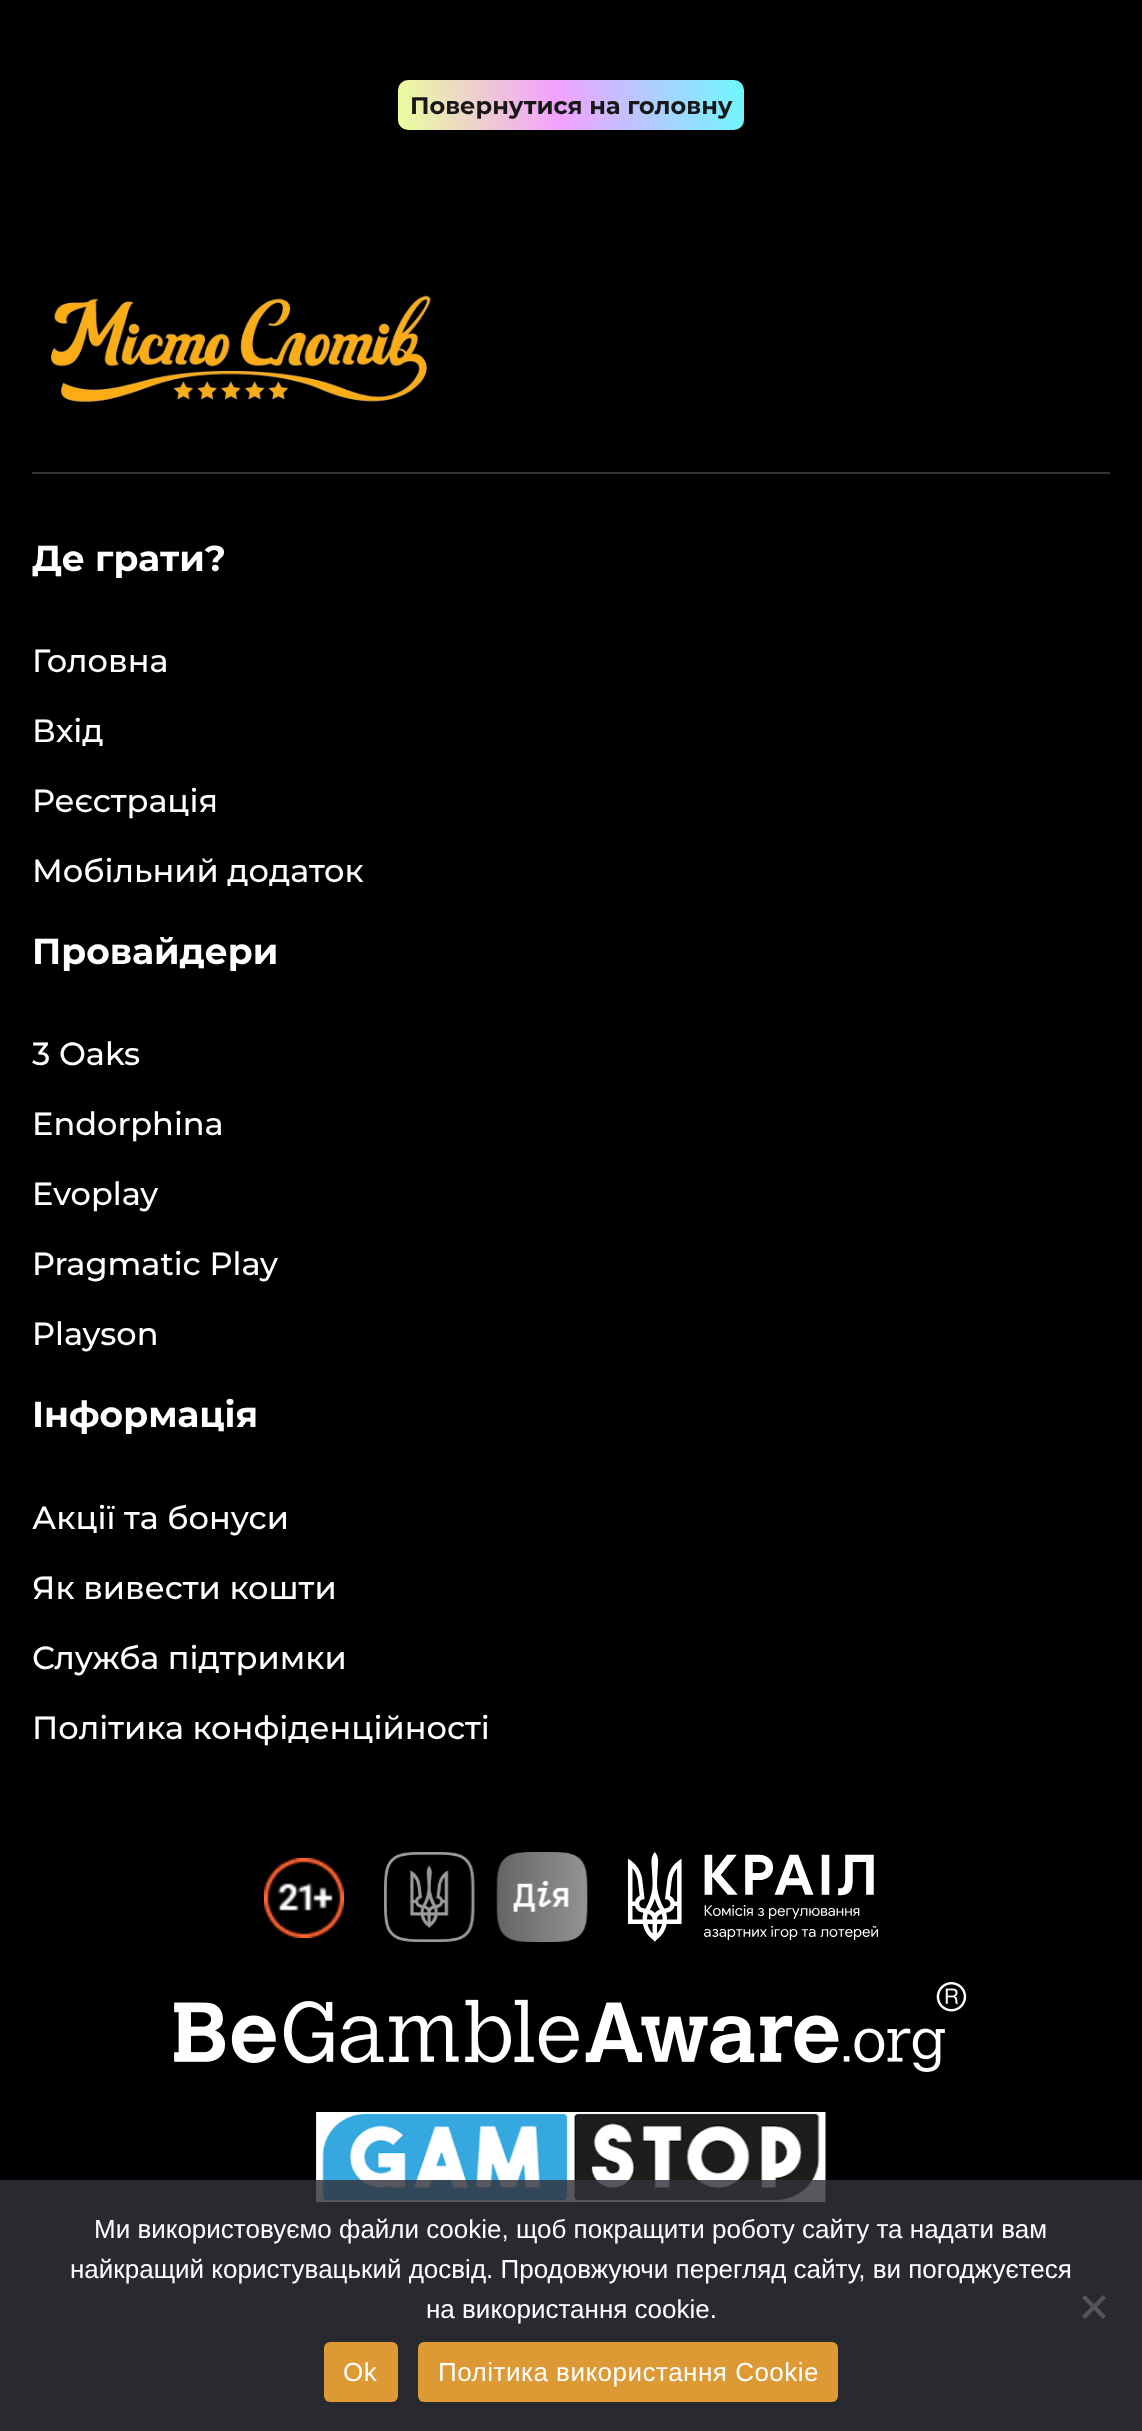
(async () => {
  const canvas = document.querySelector("canvas");
  canvas.width = 1142;
  canvas.height = 2431;
  const ctx = canvas.getContext("2d");
  ctx.miterLimit = 4;
  ctx.fontKerning = "normal";
  async function loadImage(src) {
    const img = new Image();
    img.src = src;
    await img.decode();
    return img;
  }
  let gradient, path;

  ctx.fillStyle = "#000000";
  ctx.fillRect(0, 0, 1142, 2431);
  gradient = ctx.createLinearGradient(398, 129, 744, 81);
  gradient.addColorStop(0, "#eafe9c");
  gradient.addColorStop(0.46, "#f2a1ff");
  gradient.addColorStop(0.99, "#71f6ff");
  ctx.fillStyle = gradient;
  ctx.beginPath();
  ctx.roundRect(398, 80, 346, 50, 10);
  ctx.fill();
  ctx.drawImage(await loadImage("img/1.png"), 51, 295, 380, 107);
  ctx.fillStyle = "#333333";
  ctx.fillRect(32, 472, 1078, 2);
  ctx.drawImage(await loadImage("img/2.png"), 264, 1858, 80, 80);
  ctx.drawImage(await loadImage("img/3.png"), 384, 1852, 204, 90);
  ctx.drawImage(await loadImage("img/4.png"), 628, 1852, 250, 90);
  ctx.drawImage(await loadImage("img/5.png"), 174, 1982, 793, 90);
  ctx.drawImage(await loadImage("img/6.png"), 316, 2112, 510, 90);
  ctx.fillStyle = "rgba(50, 50, 58, 0.82)";
  ctx.fillRect(0, 2180, 1142, 251);
  ctx.fillStyle = "#555558";
  path = new Path2D("M1103 2295L1106 2298L1085 2319L1082 2316Z");
  ctx.fill(path);
  path = new Path2D("M1082 2298L1085 2295L1106 2316L1103 2319Z");
  ctx.fill(path);
  ctx.fillStyle = "#dd9933";
  ctx.beginPath();
  ctx.roundRect(324, 2342, 74, 60, 6);
  ctx.fill();
  ctx.beginPath();
  ctx.roundRect(418, 2342, 420, 60, 6);
  ctx.fill();
  ctx.font = "bold 24px Montserrat";
  ctx.fillStyle = "#181818";
  ctx.fillText("Повернутися на головну", 410, 114);
  ctx.font = "bold 36px Montserrat";
  ctx.fillStyle = "#ffffff";
  ctx.fillText("Де грати?", 32, 571);
  ctx.font = "500 32px Montserrat";
  for (const [text, x, y] of [
    ["Головна", 32, 672],
    ["Вхід", 32, 742],
    ["Реєстрація", 32, 812],
    ["Мобільний додаток", 32, 882],
  ]) {
    ctx.fillText(text, x, y);
  }
  ctx.font = "bold 36px Montserrat";
  ctx.fillText("Провайдери", 32, 964);
  ctx.font = "500 32px Montserrat";
  for (const [text, x, y] of [
    ["3 Oaks", 32, 1065],
    ["Endorphina", 32, 1135],
    ["Evoplay", 32, 1205],
    ["Pragmatic Play", 32, 1275],
    ["Playson", 32, 1345],
  ]) {
    ctx.fillText(text, x, y);
  }
  ctx.font = "bold 36px Montserrat";
  ctx.fillText("Інформація", 32, 1427);
  ctx.font = "500 32px Montserrat";
  for (const [text, x, y] of [
    ["Акції та бонуси", 32, 1529],
    ["Як вивести кошти", 32, 1599],
    ["Служба підтримки", 32, 1669],
    ["Політика конфіденційності", 32, 1739],
  ]) {
    ctx.fillText(text, x, y);
  }
  ctx.font = "26px Liberation Sans";
  for (const [text, x, y] of [
    ["Ми використовуємо файли cookie, щоб покращити роботу сайту та надати вам", 94, 2238],
    ["найкращий користувацький досвід. Продовжуючи перегляд сайту, ви погоджуєтеся", 70, 2278],
    ["на використання cookie.", 426, 2318],
  ]) {
    ctx.fillText(text, x, y);
  }
  ctx.letterSpacing = "0.5px";
  ctx.fillText("Ok", 343, 2381);
  ctx.fillText("Політика використання Cookie", 438, 2381);
})();
